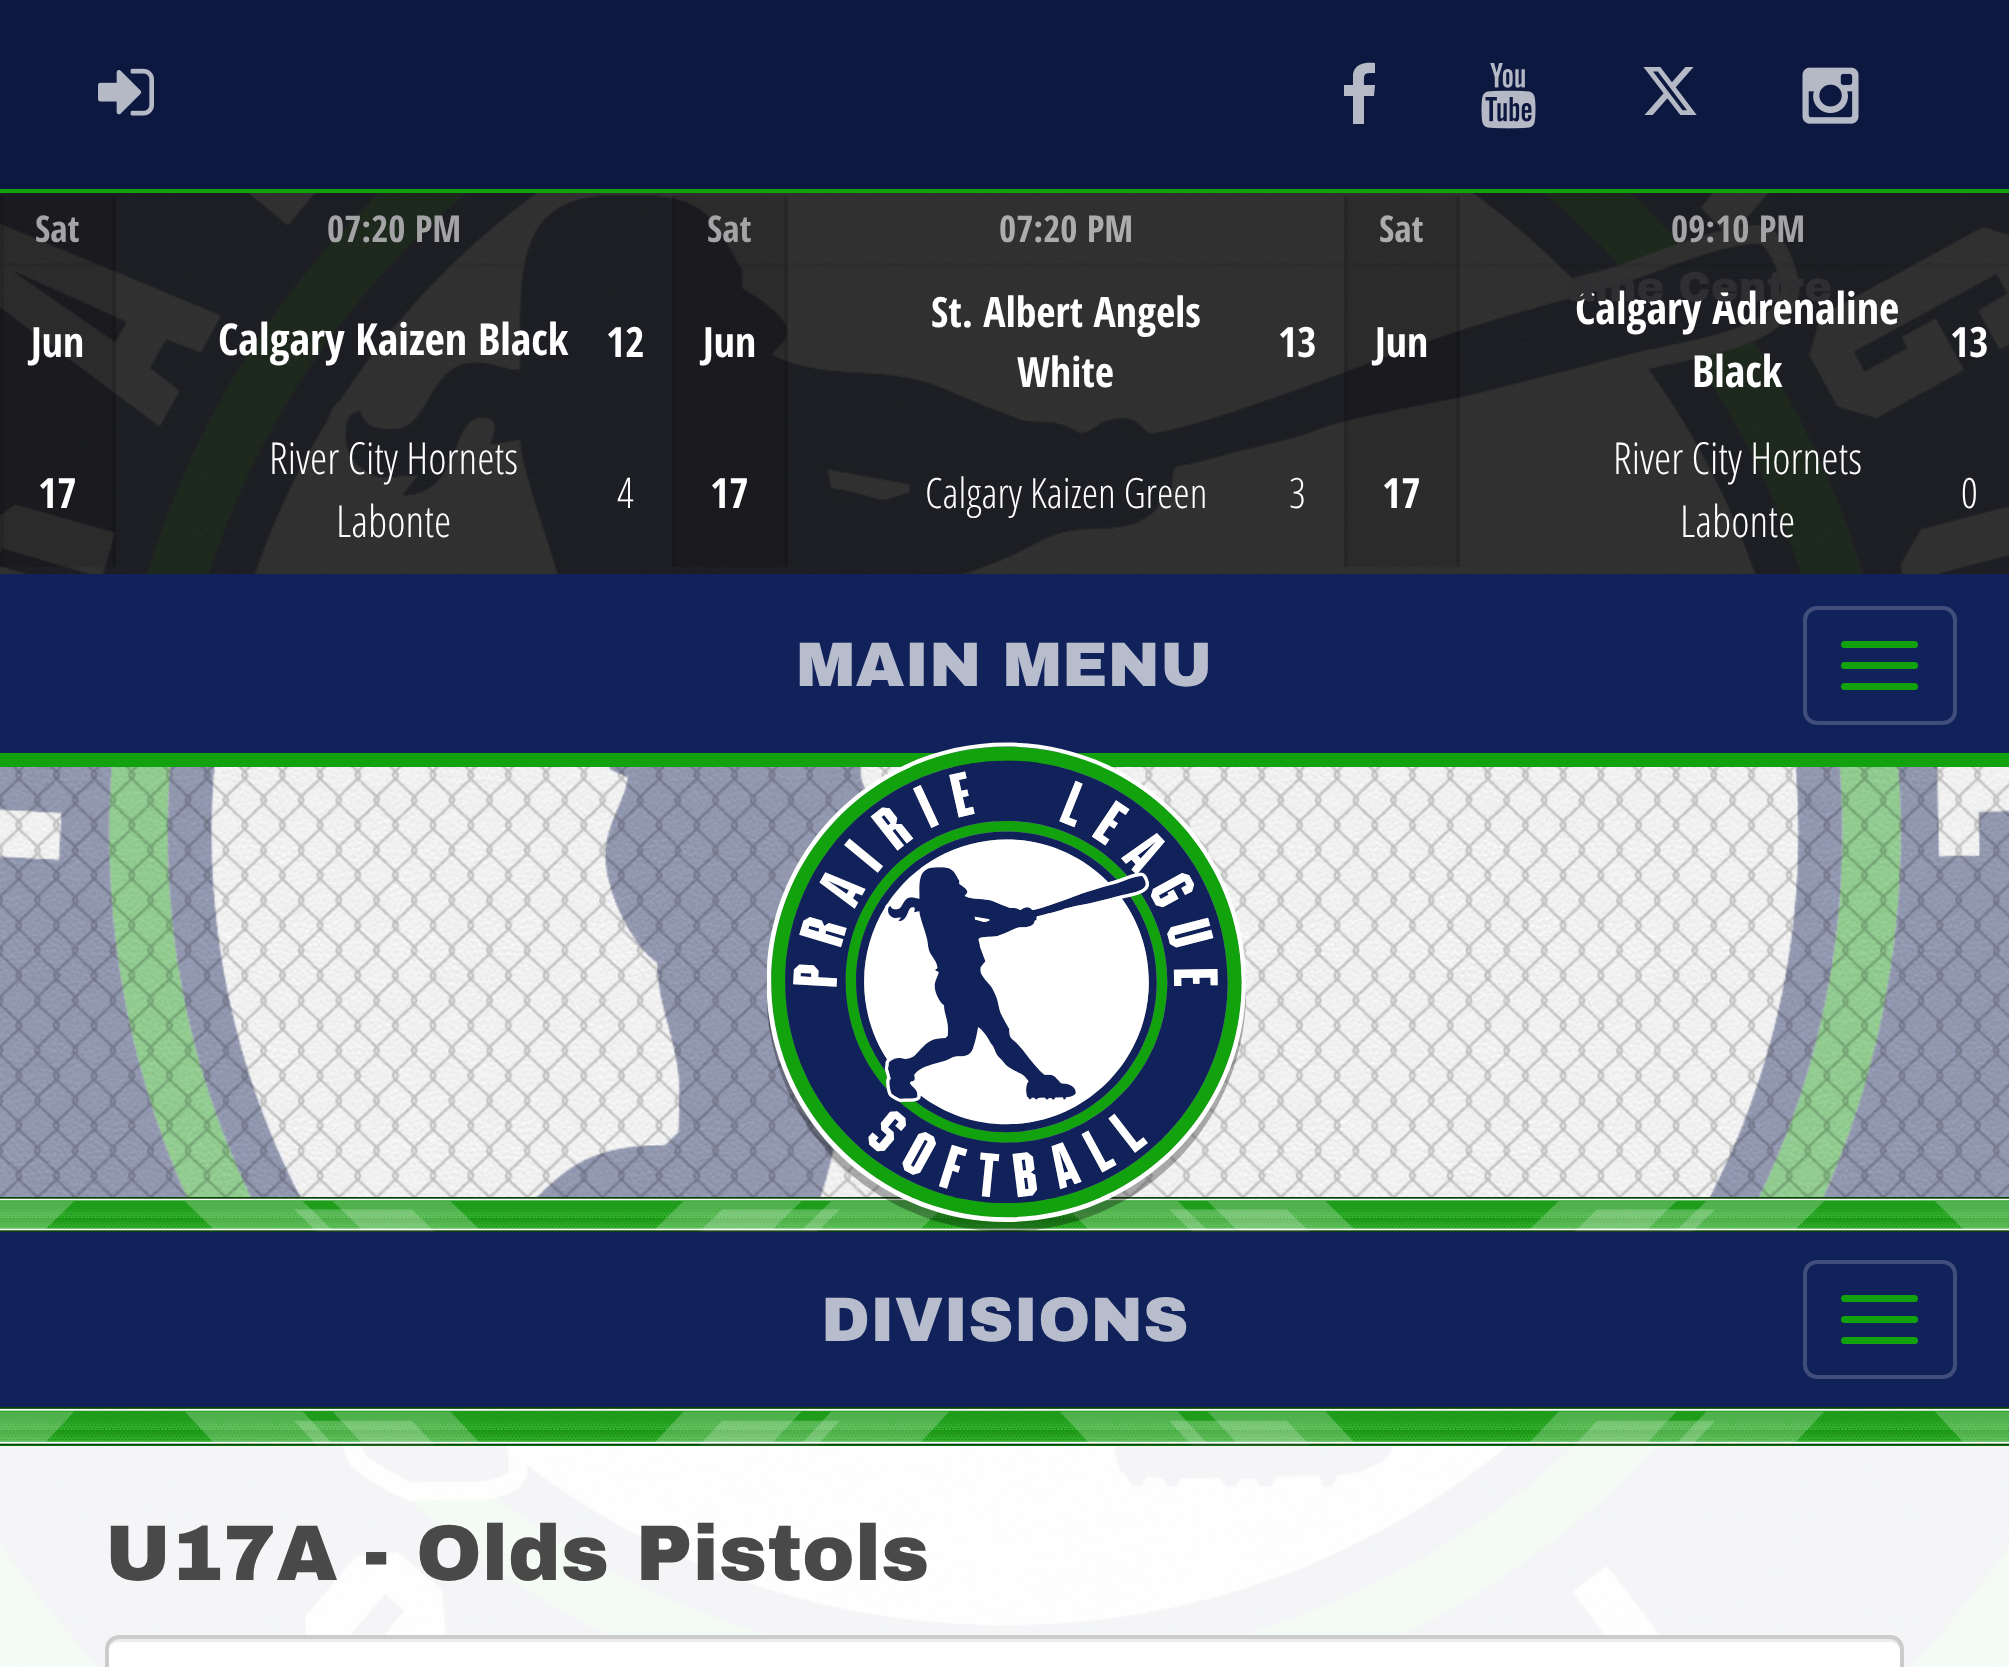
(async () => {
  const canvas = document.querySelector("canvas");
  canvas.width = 2009;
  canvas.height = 1667;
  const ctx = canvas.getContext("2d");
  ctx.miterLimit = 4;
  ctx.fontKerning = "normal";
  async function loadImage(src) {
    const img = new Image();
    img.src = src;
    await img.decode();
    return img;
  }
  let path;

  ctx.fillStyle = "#ffffff";
  ctx.fillRect(0, 0, 2009, 1667);
  ctx.fillStyle = "#11a20d";
  ctx.fillRect(0, 189, 2009, 4);
  ctx.fillStyle = "#0c1840";
  ctx.fillRect(0, 0, 2009, 189);
  ctx.drawImage(await loadImage("img/1.png"), 98, 68, 56, 48);
  ctx.fillStyle = "#b6bac6";
  path = new Path2D("M1375 63V73C1363 73 1364 73 1364 85H1375L1374 96H1364V124H1353V96H1344V85H1353V74C1355 63 1366 62 1375 63Z");
  ctx.fill(path);
  ctx.drawImage(await loadImage("img/2.png"), 1481, 63, 55, 66);
  ctx.drawImage(await loadImage("img/3.png"), 1643, 67, 54, 48);
  ctx.drawImage(await loadImage("img/4.png"), 1802, 67, 57, 57);
  ctx.drawImage(await loadImage("img/5.png"), 0, 193, 2009, 1474);
  for (const [x, y, w, h, color] of [
    [0, 193, 2009, 381, "rgba(0, 0, 0, 0.8)"],
    [0, 574, 2009, 179, "#11225b"],
    [0, 196, 4, 371, "rgba(0, 0, 0, 0.2)"],
    [4, 196, 112, 371, "rgba(0, 0, 0, 0.1)"],
    [112, 196, 4, 371, "rgba(0, 0, 0, 0.1)"],
    [4, 263, 95, 4, "rgba(0, 0, 0, 0.06)"],
    [450, 263, 74, 4, "rgba(0, 0, 0, 0.06)"],
    [672, 196, 4, 371, "rgba(0, 0, 0, 0.2)"],
    [676, 196, 112, 371, "rgba(0, 0, 0, 0.1)"],
    [784, 196, 4, 371, "rgba(0, 0, 0, 0.1)"],
    [741, 263, 43, 4, "rgba(0, 0, 0, 0.06)"],
    [788, 263, 556, 4, "rgba(0, 0, 0, 0.06)"],
    [1344, 196, 4, 371, "rgba(0, 0, 0, 0.2)"],
    [1348, 196, 112, 371, "rgba(0, 0, 0, 0.1)"],
    [1456, 196, 4, 371, "rgba(0, 0, 0, 0.1)"],
    [1348, 263, 108, 4, "rgba(0, 0, 0, 0.06)"],
    [1460, 263, 549, 4, "rgba(0, 0, 0, 0.06)"],
    [0, 753, 2009, 14, "#11a20d"],
  ]) {
    ctx.fillStyle = color;
    ctx.fillRect(x, y, w, h);
  }
  ctx.beginPath();
  ctx.roundRect(1805, 608, 150, 115, 12);
  ctx.strokeStyle = "#414e7c";
  ctx.lineWidth = 4;
  ctx.stroke();
  ctx.beginPath();
  ctx.roundRect(1841, 641, 77, 7, 3.5);
  ctx.fill();
  ctx.beginPath();
  ctx.roundRect(1841, 662, 77, 7, 3.5);
  ctx.fill();
  ctx.beginPath();
  ctx.roundRect(1841, 683, 77, 7, 3.5);
  ctx.fill();
  ctx.drawImage(await loadImage("img/7.png"), 0, 767, 2009, 430);
  ctx.fillRect(0, 1197, 2009, 35);
  ctx.drawImage(await loadImage("img/8.png"), 0, 1197, 2009, 35);
  ctx.drawImage(await loadImage("img/6.png"), 767, 742, 479, 490);
  ctx.fillStyle = "#11225b";
  ctx.fillRect(0, 1232, 2009, 175);
  ctx.beginPath();
  ctx.roundRect(1805, 1262, 150, 115, 12);
  ctx.stroke();
  ctx.fillStyle = "#11a20d";
  ctx.beginPath();
  ctx.roundRect(1841, 1295, 77, 7, 3.5);
  ctx.fill();
  ctx.beginPath();
  ctx.roundRect(1841, 1316, 77, 7, 3.5);
  ctx.fill();
  ctx.beginPath();
  ctx.roundRect(1841, 1337, 77, 7, 3.5);
  ctx.fill();
  ctx.fillRect(0, 1407, 2009, 39);
  ctx.drawImage(await loadImage("img/9.png"), 0, 1407, 2009, 39);
  ctx.fillStyle = "rgba(255, 255, 255, 0.9)";
  ctx.fillRect(0, 1446, 2009, 221);
  ctx.fillStyle = "#ffffff";
  ctx.beginPath();
  ctx.roundRect(105, 1635, 1799, 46, 14);
  ctx.fill();
  ctx.fillStyle = "#ececec";
  path = new Path2D("M119 1642H1890C1896 1642 1900 1646 1900 1652V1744C1901 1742 1901 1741 1901 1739V1649C1901 1643 1896 1638 1890 1638H120C114 1638 110 1642 109 1647C111 1644 115 1642 119 1642Z");
  ctx.fill(path);
  ctx.beginPath();
  ctx.roundRect(107, 1637, 1795, 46, 12);
  ctx.strokeStyle = "#cccccc";
  ctx.stroke();
  ctx.font = "bold 37px Open Sans Condensed";
  ctx.fillStyle = "#a4a4a6";
  ctx.fillText("Sat", 35, 242);
  ctx.font = "bold 41.75px Open Sans Condensed";
  ctx.fillStyle = "#ffffff";
  ctx.fillText("Jun", 31, 357);
  ctx.fillText("17", 38, 508);
  ctx.font = "bold 37px Open Sans Condensed";
  ctx.fillStyle = "#a4a4a6";
  ctx.fillText("07:20 PM", 327, 242);
  ctx.font = "bold 44px Open Sans Condensed";
  ctx.fillStyle = "#ffffff";
  ctx.fillText("Calgary Kaizen Black", 218, 355);
  ctx.font = "300 44px Open Sans Condensed";
  ctx.fillText("River City Hornets", 269, 474);
  ctx.fillText("Labonte", 336, 537);
  ctx.font = "bold 41.75px Open Sans Condensed";
  ctx.fillText("12", 606, 357);
  ctx.font = "300 41.75px Open Sans Condensed";
  ctx.fillText("4", 617, 508);
  ctx.font = "bold 37px Open Sans Condensed";
  ctx.fillStyle = "#a4a4a6";
  ctx.fillText("Sat", 707, 242);
  ctx.font = "bold 41.75px Open Sans Condensed";
  ctx.fillStyle = "#ffffff";
  ctx.fillText("Jun", 703, 357);
  ctx.fillText("17", 710, 508);
  ctx.font = "bold 37px Open Sans Condensed";
  ctx.fillStyle = "#acacac";
  ctx.fillText("07:20 PM", 999, 242);
  ctx.font = "bold 41.75px Open Sans Condensed";
  ctx.fillStyle = "#ffffff";
  ctx.fillText("St. Albert Angels", 931, 327);
  ctx.fillText("White", 1017, 387);
  ctx.font = "300 41.75px Open Sans Condensed";
  ctx.fillText("Calgary Kaizen Green", 925, 508);
  ctx.font = "bold 41.75px Open Sans Condensed";
  ctx.fillText("13", 1278, 357);
  ctx.font = "300 41.75px Open Sans Condensed";
  ctx.fillText("3", 1289, 508);
  ctx.font = "bold 37px Open Sans Condensed";
  ctx.fillStyle = "#acacac";
  ctx.fillText("Sat", 1379, 242);
  ctx.font = "bold 41.75px Open Sans Condensed";
  ctx.fillStyle = "#ffffff";
  ctx.fillText("Jun", 1375, 357);
  ctx.fillText("17", 1382, 508);
  ctx.font = "bold 37px Open Sans Condensed";
  ctx.fillStyle = "#a4a4a6";
  ctx.fillText("09:10 PM", 1671, 242);
  ctx.font = "bold 44px Open Sans Condensed";
  ctx.fillStyle = "#ffffff";
  ctx.fillText("Calgary Adrenaline", 1575, 324);
  ctx.fillText("Black", 1692, 387);
  ctx.font = "300 44px Open Sans Condensed";
  ctx.fillText("River City Hornets", 1613, 474);
  ctx.fillText("Labonte", 1680, 537);
  ctx.font = "bold 41.75px Open Sans Condensed";
  ctx.fillText("13", 1950, 357);
  ctx.font = "300 41.75px Open Sans Condensed";
  ctx.fillText("0", 1961, 508);
  ctx.font = "900 41.75px Archivo Black";
  ctx.fillStyle = "#2f2f32";
  ctx.fillText("ame Centre", 1567, 301);
  ctx.font = "900 63px Archivo Black";
  ctx.fillStyle = "#b8bdce";
  ctx.fillText("MAIN MENU", 796, 686);
  ctx.fillText("DIVISIONS", 821, 1341);
  ctx.font = "900 79px Archivo Black";
  ctx.fillStyle = "#49494a";
  for (const [text, x, y] of [
    ["U17A", 105, 1580],
    ["-", 363, 1580],
    ["Olds Pistols", 416, 1580],
  ]) {
    ctx.fillText(text, x, y);
  }
})();
